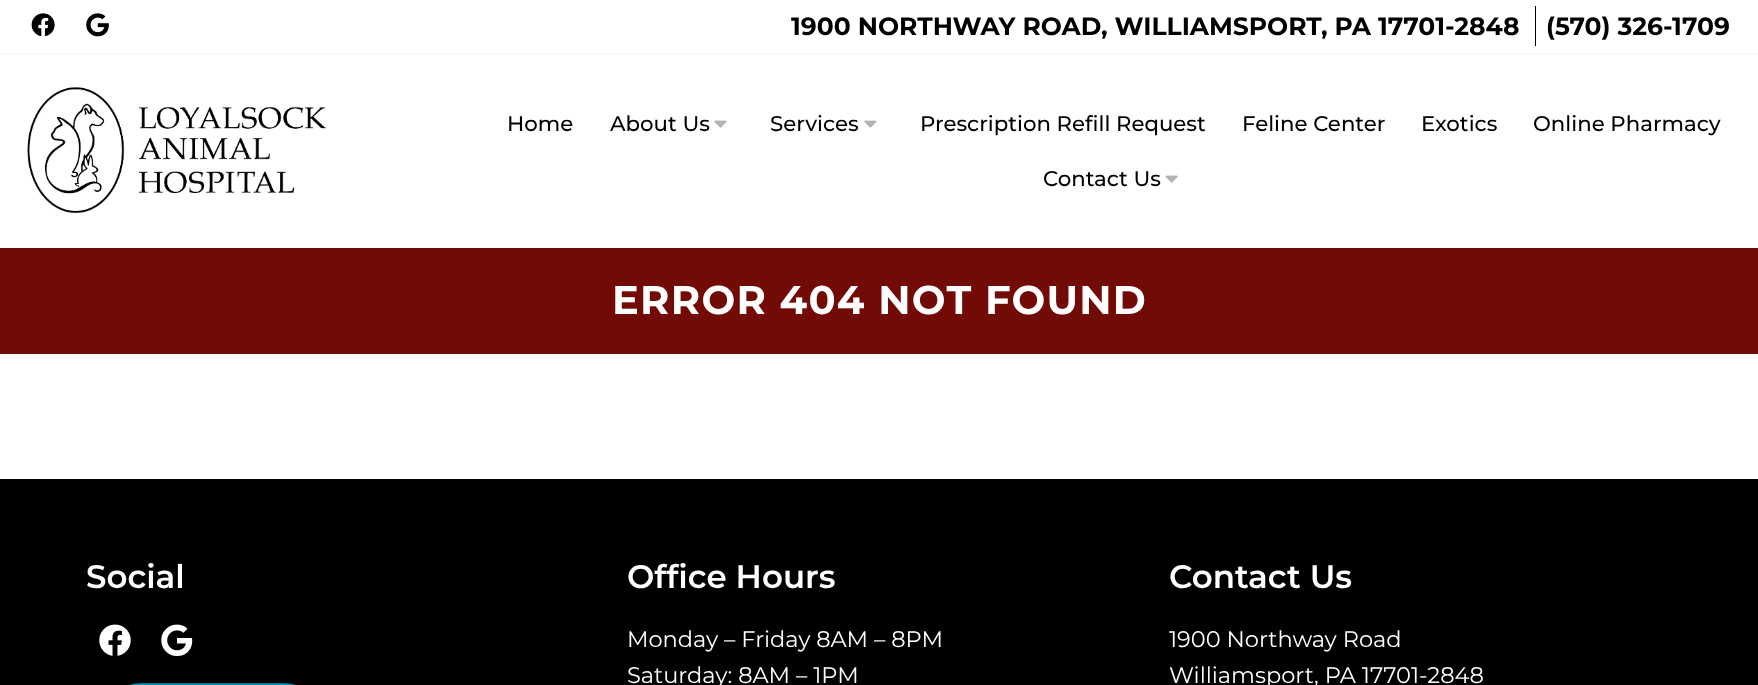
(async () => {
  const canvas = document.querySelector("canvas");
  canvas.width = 1758;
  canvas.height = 685;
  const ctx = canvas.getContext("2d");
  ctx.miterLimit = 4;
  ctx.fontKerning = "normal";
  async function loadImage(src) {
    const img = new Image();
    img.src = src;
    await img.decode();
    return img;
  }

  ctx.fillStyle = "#ffffff";
  ctx.fillRect(0, 0, 1758, 685);
  ctx.drawImage(await loadImage("img/1.png"), 31, 13, 24, 24);
  ctx.drawImage(await loadImage("img/2.png"), 86, 13, 23, 24);
  ctx.fillStyle = "#000000";
  ctx.fillRect(1535, 6, 1, 40);
  ctx.fillStyle = "#f0f8ff";
  ctx.fillRect(0, 53, 1758, 1);
  ctx.drawImage(await loadImage("img/3.png"), 27, 87, 300, 126);
  ctx.drawImage(await loadImage("img/4.png"), 714, 120, 13, 8);
  ctx.drawImage(await loadImage("img/4.png"), 864, 120, 13, 8);
  ctx.drawImage(await loadImage("img/5.png"), 1165, 175, 13, 8);
  ctx.fillStyle = "#720a06";
  ctx.fillRect(0, 248, 1758, 106);
  ctx.fillStyle = "#000000";
  ctx.fillRect(0, 479, 1758, 206);
  ctx.drawImage(await loadImage("img/6.png"), 99, 624, 32, 32);
  ctx.drawImage(await loadImage("img/7.png"), 161, 624, 32, 33);
  ctx.drawImage(await loadImage("img/8.png"), 128, 683, 169, 2);
  ctx.font = "bold 25px Montserrat";
  ctx.fillText("1900 NORTHWAY ROAD, WILLIAMSPORT, PA 17701-2848", 791, 35);
  ctx.fillText("(570) 326-1709", 1546, 35);
  ctx.font = "500 21.25px Montserrat";
  for (const [text, x, y] of [
    ["Home", 507, 131],
    ["About Us", 610, 131],
    ["Services", 770, 131],
    ["Prescription Refill Request", 920, 131],
    ["Feline Center", 1242, 131],
    ["Exotics", 1421, 131],
    ["Online Pharmacy", 1533, 131],
    ["Contact Us", 1043, 186],
  ]) {
    ctx.fillText(text, x, y);
  }
  ctx.letterSpacing = "1.25px";
  ctx.font = "bold 40px Montserrat";
  ctx.fillStyle = "#ffffff";
  ctx.fillText("ERROR 404 NOT FOUND", 612, 314);
  ctx.letterSpacing = "0px";
  ctx.font = "600 32.5px Montserrat";
  ctx.fillText("Social", 86, 588);
  ctx.fillText("Office Hours", 627, 588);
  ctx.font = "22.5px Montserrat";
  ctx.fillText("Monday – Friday 8AM – 8PM", 627, 647);
  ctx.fillText("Saturday: 8AM – 1PM", 627, 683);
  ctx.font = "600 32.5px Montserrat";
  ctx.fillText("Contact Us", 1169, 588);
  ctx.font = "22.5px Montserrat";
  ctx.fillText("1900 Northway Road", 1169, 647);
  ctx.fillText("Williamsport, PA 17701-2848", 1169, 683);
})();
